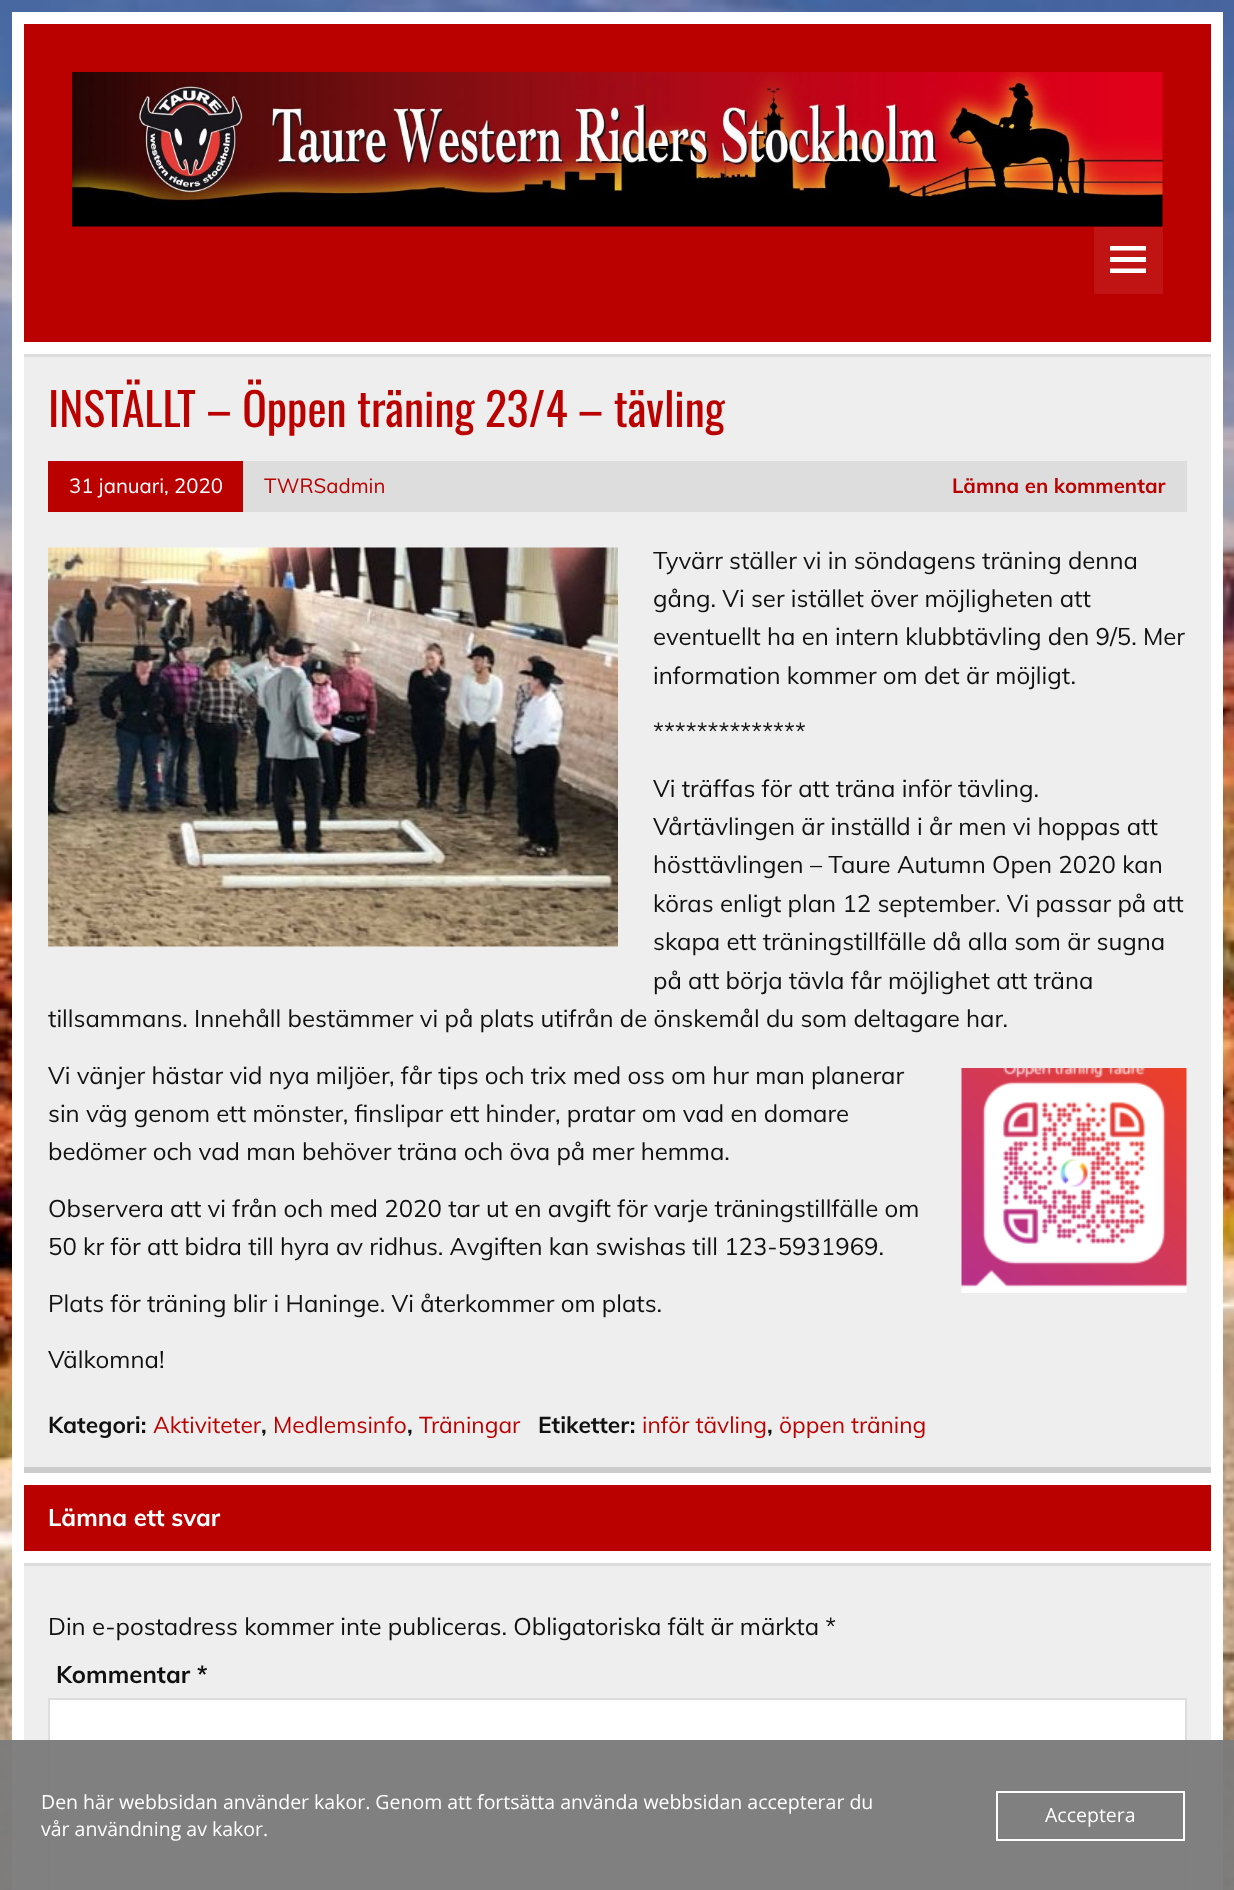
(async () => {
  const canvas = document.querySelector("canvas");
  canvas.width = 1234;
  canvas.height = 1890;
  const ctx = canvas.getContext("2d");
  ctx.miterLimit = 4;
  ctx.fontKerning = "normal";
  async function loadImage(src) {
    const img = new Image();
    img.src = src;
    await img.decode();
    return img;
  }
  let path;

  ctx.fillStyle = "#ffffff";
  ctx.fillRect(0, 0, 1234, 1890);
  ctx.drawImage(await loadImage("img/1.png"), 0, 0, 1234, 1890);
  ctx.fillRect(12, 12, 1211, 1878);
  ctx.fillStyle = "#bb0000";
  ctx.fillRect(24, 24, 1187, 318);
  ctx.drawImage(await loadImage("img/2.png"), 72, 72, 1091, 155);
  ctx.fillStyle = "#c01414";
  ctx.fillRect(1094, 227, 69, 67);
  ctx.fillStyle = "#ffffff";
  path = new Path2D("M1110 273V268.5H1146V273ZM1110 246H1146V250.5H1110ZM1110 262V257H1146V262Z");
  ctx.fill(path);
  for (const [x, y, w, h, color] of [
    [24, 357, 1187, 1110, "#eeeeee"],
    [24, 354, 1187, 3, "#dddddd"],
    [24, 1467, 1187, 6, "#cccccc"],
    [243, 461, 944, 51, "#dddddd"],
    [48, 461, 195, 51, "#bb0000"],
  ]) {
    ctx.fillStyle = color;
    ctx.fillRect(x, y, w, h);
  }
  ctx.drawImage(await loadImage("img/3.png"), 48, 547, 570, 400);
  ctx.drawImage(await loadImage("img/4.png"), 961, 1068, 226, 225);
  for (const [x, y, w, h, color] of [
    [24, 1485, 1187, 66, "#bb0000"],
    [24, 1566, 1187, 324, "#eeeeee"],
    [24, 1563, 1187, 3, "#dddddd"],
  ]) {
    ctx.fillStyle = color;
    ctx.fillRect(x, y, w, h);
  }
  ctx.fillStyle = "#ffffff";
  ctx.beginPath();
  ctx.rect(49, 1699, 1137, 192);
  ctx.fill();
  ctx.strokeStyle = "#dddddd";
  ctx.lineWidth = 2;
  ctx.stroke();
  ctx.fillStyle = "rgba(124, 124, 124, 0.97)";
  ctx.fillRect(0, 1740, 1234, 150);
  ctx.strokeStyle = "#ffffff";
  ctx.strokeRect(997, 1792, 187, 48);
  ctx.font = "45.6px Oswald";
  ctx.fillStyle = "#bb0000";
  ctx.fillText("INSTÄLLT – Öppen träning 23/4 – tävling", 48, 427);
  ctx.font = "20.4px Muli";
  ctx.fillStyle = "#ffffff";
  ctx.fillText("31 januari, 2020", 69, 493);
  ctx.fillStyle = "#bb0000";
  ctx.fillText("TWRSadmin", 264, 493);
  ctx.font = "bold 20.4px Muli";
  ctx.fillText("Lämna en kommentar", 952, 493);
  ctx.font = "24px Muli";
  ctx.fillStyle = "#111111";
  for (const [text, x, y] of [
    ["Tyvärr ställer vi in söndagens träning denna", 653, 569],
    ["gång. Vi ser istället över möjligheten att", 653, 607],
    ["eventuellt ha en intern klubbtävling den 9/5. Mer", 653, 645],
    ["information kommer om det är möjligt.", 653, 684],
    ["**************", 653, 740],
    ["Vi träffas för att träna inför tävling.", 653, 797],
    ["Vårtävlingen är inställd i år men vi hoppas att", 653, 835],
    ["hösttävlingen – Taure Autumn Open 2020 kan", 653, 873],
    ["köras enligt plan 12 september. Vi passar på att", 653, 912],
    ["skapa ett träningstillfälle då alla som är sugna", 653, 950],
    ["på att börja tävla får möjlighet att träna", 653, 989],
    ["tillsammans. Innehåll bestämmer vi på plats utifrån de önskemål du som deltagare har.", 48, 1027],
    ["Vi vänjer hästar vid nya miljöer, får tips och trix med oss om hur man planerar", 48, 1084],
    ["sin väg genom ett mönster, finslipar ett hinder, pratar om vad en domare", 48, 1122],
    ["bedömer och vad man behöver träna och öva på mer hemma.", 48, 1160],
    ["Observera att vi från och med 2020 tar ut en avgift för varje träningstillfälle om", 48, 1217],
    ["50 kr för att bidra till hyra av ridhus. Avgiften kan swishas till 123-5931969.", 48, 1255],
    ["Plats för träning blir i Haninge. Vi återkommer om plats.", 48, 1312],
    ["Välkomna!", 48, 1368],
  ]) {
    ctx.fillText(text, x, y);
  }
  ctx.font = "bold 22.75px Muli";
  ctx.fillText("Kategori:", 48, 1433);
  ctx.font = "22.75px Muli";
  ctx.fillStyle = "#bb0000";
  ctx.fillText("Aktiviteter", 153, 1433);
  ctx.font = "bold 22.75px Muli";
  ctx.fillStyle = "#111111";
  ctx.fillText(",", 261, 1433);
  ctx.font = "22.75px Muli";
  ctx.fillStyle = "#bb0000";
  ctx.fillText("Medlemsinfo", 273, 1433);
  ctx.font = "bold 22.75px Muli";
  ctx.fillStyle = "#111111";
  ctx.fillText(",", 407, 1433);
  ctx.font = "22.75px Muli";
  ctx.fillStyle = "#bb0000";
  ctx.fillText("Träningar", 419, 1433);
  ctx.font = "bold 22.75px Muli";
  ctx.fillStyle = "#111111";
  ctx.fillText("Etiketter:", 538, 1433);
  ctx.font = "22.75px Muli";
  ctx.fillStyle = "#bb0000";
  ctx.fillText("inför tävling", 642, 1433);
  ctx.font = "bold 22.75px Muli";
  ctx.fillStyle = "#111111";
  ctx.fillText(",", 767, 1433);
  ctx.font = "22.75px Muli";
  ctx.fillStyle = "#bb0000";
  ctx.fillText("öppen träning", 779, 1433);
  ctx.font = "bold 24px Muli";
  ctx.fillStyle = "#ffffff";
  ctx.fillText("Lämna ett svar", 48, 1526);
  ctx.font = "24px Muli";
  ctx.fillStyle = "#111111";
  ctx.fillText("Din e-postadress kommer inte publiceras. Obligatoriska fält är märkta *", 48, 1635);
  ctx.font = "bold 24px Muli";
  ctx.fillText("Kommentar *", 56, 1683);
  ctx.font = "19.5px Open Sans";
  ctx.fillStyle = "#ffffff";
  for (const [text, x, y] of [
    ["Den här webbsidan använder kakor. Genom att fortsätta använda webbsidan accepterar du", 41, 1809],
    ["vår användning av kakor.", 41, 1836],
    ["Acceptera", 1045, 1822],
  ]) {
    ctx.fillText(text, x, y);
  }
})();
